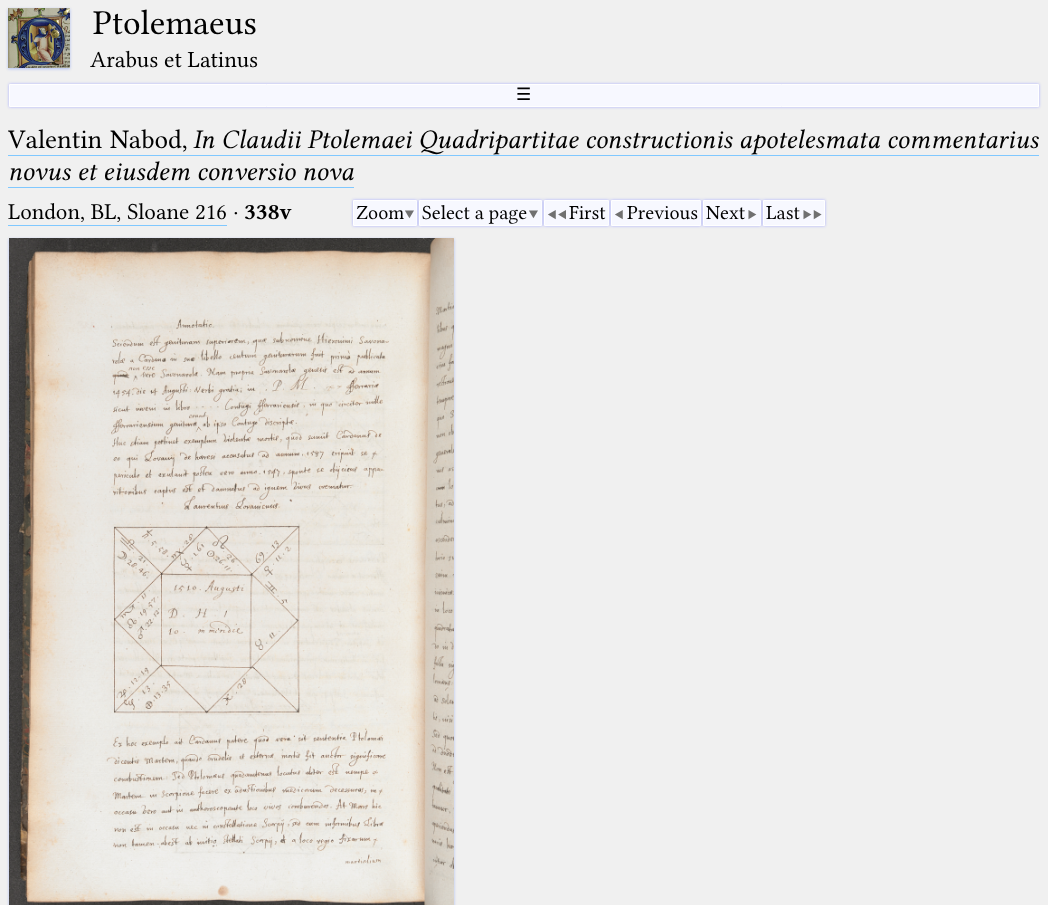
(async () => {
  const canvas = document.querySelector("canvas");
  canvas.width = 1048;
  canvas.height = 905;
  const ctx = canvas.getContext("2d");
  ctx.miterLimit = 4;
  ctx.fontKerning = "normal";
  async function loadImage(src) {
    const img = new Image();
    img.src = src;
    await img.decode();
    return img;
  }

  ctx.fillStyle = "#f0f0f0";
  ctx.fillRect(0, 0, 1048, 905);
  ctx.fillStyle = "#b0c0f4";
  ctx.filter = "blur(1.5px)";
  ctx.beginPath();
  ctx.rect(8, 9, 62, 60);
  ctx.fill();
  ctx.filter = "none";
  ctx.drawImage(await loadImage("img/1.png"), 8, 8, 62, 60);
  ctx.fillStyle = "#aaafff";
  ctx.filter = "blur(1.5px)";
  ctx.beginPath();
  ctx.rect(9, 84, 1030, 23);
  ctx.fill();
  ctx.filter = "none";
  ctx.fillStyle = "#f7f8ff";
  ctx.beginPath();
  ctx.rect(9.5, 84.5, 1029, 22);
  ctx.fill();
  ctx.strokeStyle = "#ffffff";
  ctx.stroke();
  for (const [x, y, w, h, color] of [
    [8, 155, 1031, 1, "#80c8ff"],
    [8, 187, 346, 1, "#80c8ff"],
    [8, 225, 219, 1, "#80c8ff"],
  ]) {
    ctx.fillStyle = color;
    ctx.fillRect(x, y, w, h);
  }
  ctx.fillStyle = "#aaafff";
  ctx.filter = "blur(1.5px)";
  ctx.beginPath();
  ctx.rect(353, 200, 64, 26);
  ctx.fill();
  ctx.filter = "none";
  ctx.fillStyle = "#f7f8ff";
  ctx.beginPath();
  ctx.rect(353.5, 200.5, 63, 25);
  ctx.fill();
  ctx.stroke();
  ctx.fillStyle = "#aaafff";
  ctx.filter = "blur(1.5px)";
  ctx.beginPath();
  ctx.rect(419, 200, 123, 26);
  ctx.fill();
  ctx.filter = "none";
  ctx.fillStyle = "#f7f8ff";
  ctx.beginPath();
  ctx.rect(419.5, 200.5, 122, 25);
  ctx.fill();
  ctx.stroke();
  ctx.fillStyle = "#aaafff";
  ctx.filter = "blur(1.5px)";
  ctx.beginPath();
  ctx.rect(544, 200, 65, 26);
  ctx.fill();
  ctx.filter = "none";
  ctx.fillStyle = "#f7f8ff";
  ctx.beginPath();
  ctx.rect(544.5, 200.5, 64, 25);
  ctx.fill();
  ctx.stroke();
  ctx.fillStyle = "#aaafff";
  ctx.filter = "blur(1.5px)";
  ctx.beginPath();
  ctx.rect(611, 200, 90, 26);
  ctx.fill();
  ctx.filter = "none";
  ctx.fillStyle = "#f7f8ff";
  ctx.beginPath();
  ctx.rect(611.5, 200.5, 89, 25);
  ctx.fill();
  ctx.stroke();
  ctx.fillStyle = "#aaafff";
  ctx.filter = "blur(1.5px)";
  ctx.beginPath();
  ctx.rect(703, 200, 58, 26);
  ctx.fill();
  ctx.filter = "none";
  ctx.fillStyle = "#f7f8ff";
  ctx.beginPath();
  ctx.rect(703.5, 200.5, 57, 25);
  ctx.fill();
  ctx.stroke();
  ctx.fillStyle = "#aaafff";
  ctx.filter = "blur(1.5px)";
  ctx.beginPath();
  ctx.rect(763, 200, 62, 26);
  ctx.fill();
  ctx.filter = "none";
  ctx.fillStyle = "#f7f8ff";
  ctx.beginPath();
  ctx.rect(763.5, 200.5, 61, 25);
  ctx.fill();
  ctx.stroke();
  ctx.fillStyle = "#b0c0f4";
  ctx.filter = "blur(1.5px)";
  ctx.beginPath();
  ctx.rect(9, 239, 445, 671);
  ctx.fill();
  ctx.filter = "none";
  ctx.drawImage(await loadImage("img/2.png"), 9, 238, 445, 667);
  ctx.font = "35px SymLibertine";
  ctx.fillStyle = "#000000";
  ctx.fillText("Ptolemaeus", 93, 34);
  ctx.font = "23.25px SymLibertine";
  ctx.fillText("Arabus et Latinus", 90, 67);
  ctx.font = "17px DejaVu Sans";
  ctx.fillText("☰", 516, 100);
  ctx.wordSpacing = "1px";
  ctx.font = "27px SymLibertine";
  ctx.fillText("Valentin Nabod,", 8, 148);
  ctx.wordSpacing = "0px";
  ctx.font = "italic 27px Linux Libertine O";
  ctx.fillText("In Claudii Ptolemaei Quadripartitae constructionis apotelesmata commentarius", 193, 148);
  ctx.fillText("novus et eiusdem conversio nova", 8, 180);
  ctx.font = "23px SymLibertine";
  ctx.fillText("London, BL, Sloane 216", 8, 219);
  ctx.fillText("·", 233, 219);
  ctx.font = "bold 23px Linux Libertine O";
  ctx.fillText("338v", 244, 219);
  ctx.font = "20px SymLibertine";
  ctx.fillText("Zoom", 356, 219);
  ctx.fillStyle = "#707070";
  ctx.fillText("▼", 404, 219);
  ctx.fillStyle = "#000000";
  ctx.fillText("Select a page", 422, 219);
  ctx.fillStyle = "#707070";
  ctx.fillText("▼", 528, 219);
  ctx.fillText("◀◀", 547, 219);
  ctx.fillStyle = "#000000";
  ctx.fillText("First", 569, 219);
  ctx.fillStyle = "#707070";
  ctx.fillText("◀", 614, 219);
  ctx.fillStyle = "#000000";
  ctx.fillText("Previous", 627, 219);
  ctx.fillText("Next", 706, 219);
  ctx.fillStyle = "#707070";
  ctx.fillText("▶", 747, 219);
  ctx.fillStyle = "#000000";
  ctx.fillText("Last", 766, 219);
  ctx.fillStyle = "#707070";
  ctx.fillText("▶▶", 802, 219);
})();
